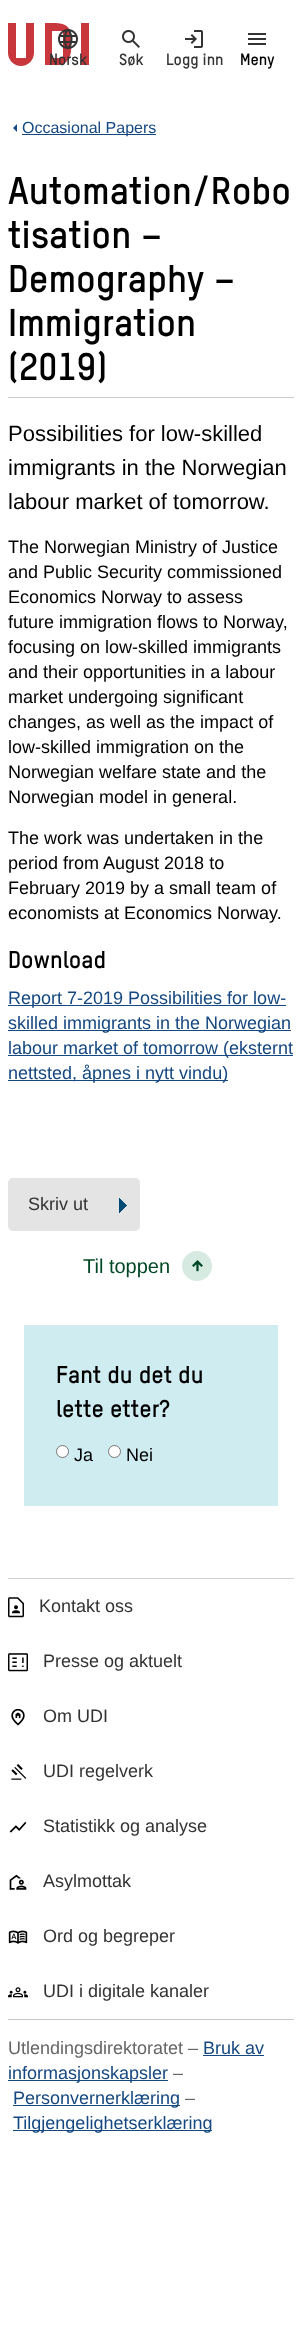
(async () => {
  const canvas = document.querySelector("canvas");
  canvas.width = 302;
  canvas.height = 2325;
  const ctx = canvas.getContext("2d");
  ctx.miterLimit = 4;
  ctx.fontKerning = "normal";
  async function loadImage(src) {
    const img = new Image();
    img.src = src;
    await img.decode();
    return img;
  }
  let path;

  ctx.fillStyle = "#ffffff";
  ctx.fillRect(0, 0, 302, 2325);
  ctx.save();
  ctx.beginPath();
  ctx.rect(8, 23, 81, 43);
  ctx.clip();
  ctx.fillStyle = "#c8373c";
  path = new Path2D("M34 53C34 60 28 66 21 66C14 66 8 60 8 53V23H16V58H26V23H34ZM71 36C71 21 55 23 45 23V65H60C74 62 71 46 71 36ZM63 58H52V31H63Z");
  ctx.fill(path);
  ctx.restore();
  ctx.fillStyle = "#c8373c";
  ctx.fillRect(81, 23, 8, 42);
  ctx.drawImage(await loadImage("img/1.png"), 58, 29, 20, 20);
  ctx.drawImage(await loadImage("img/2.png"), 122, 30, 18, 18);
  ctx.drawImage(await loadImage("img/3.png"), 185, 30, 18, 18);
  ctx.drawImage(await loadImage("img/4.png"), 248, 33, 18, 12);
  ctx.fillStyle = "#154881";
  path = new Path2D("M17 124V132L13 128Z");
  ctx.fill(path);
  for (const [x, y, w, h, color] of [
    [22, 134, 134, 1, "#154881"],
    [8, 397, 286, 1, "#c9c9c9"],
    [8, 1005, 278, 1, "#154881"],
    [8, 1030, 283, 1, "#154881"],
    [8, 1055, 285, 1, "#154881"],
    [8, 1080, 220, 1, "#154881"],
  ]) {
    ctx.fillStyle = color;
    ctx.fillRect(x, y, w, h);
  }
  ctx.fillStyle = "#e4e4e4";
  ctx.beginPath();
  ctx.roundRect(8, 1178, 132, 53, 5);
  ctx.fill();
  ctx.drawImage(await loadImage("img/5.png"), 119, 1198, 8, 15);
  ctx.drawImage(await loadImage("img/6.png"), 182, 1251, 30, 30);
  ctx.fillStyle = "#cfecf1";
  ctx.fillRect(24, 1325, 254, 181);
  ctx.fillStyle = "#ffffff";
  ctx.beginPath();
  ctx.arc(62.5, 1451.5, 6, 0, Math.PI * 2);
  ctx.fill();
  ctx.strokeStyle = "#767676";
  ctx.stroke();
  ctx.beginPath();
  ctx.arc(114.5, 1451.5, 6, 0, Math.PI * 2);
  ctx.fill();
  ctx.stroke();
  ctx.fillStyle = "#d3d3d3";
  ctx.fillRect(8, 1578, 286, 1);
  ctx.drawImage(await loadImage("img/7.png"), 8, 1597, 16, 21);
  ctx.drawImage(await loadImage("img/8.png"), 8, 1653, 20, 19);
  ctx.drawImage(await loadImage("img/9.png"), 11, 1708, 14, 18);
  ctx.drawImage(await loadImage("img/10.png"), 11, 1764, 16, 16);
  ctx.drawImage(await loadImage("img/11.png"), 9, 1821, 18, 12);
  ctx.drawImage(await loadImage("img/12.png"), 9, 1874, 18, 16);
  ctx.drawImage(await loadImage("img/13.png"), 8, 1930, 20, 14);
  ctx.drawImage(await loadImage("img/14.png"), 8, 1987, 20, 11);
  for (const [x, y, w, h, color] of [
    [8, 2019, 286, 1, "#c9c9c9"],
    [203, 2055, 61, 1, "#154881"],
    [8, 2080, 160, 1, "#154881"],
    [13, 2105, 167, 1, "#154881"],
    [13, 2130, 199, 1, "#154881"],
  ]) {
    ctx.fillStyle = color;
    ctx.fillRect(x, y, w, h);
  }
  ctx.font = "bold 16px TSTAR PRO";
  ctx.fillStyle = "#333333";
  for (const [text, x, y] of [
    ["Norsk", 49, 65],
    ["Søk", 119, 65],
    ["Logg inn", 166, 65],
  ]) {
    ctx.fillText(text, x, y);
  }
  ctx.fillStyle = "#000000";
  ctx.fillText("Meny", 240, 65);
  ctx.font = "16px Liberation Sans";
  ctx.fillStyle = "#154881";
  ctx.fillText("Occasional Papers", 22, 133);
  ctx.font = "bold 38px TSTAR PRO";
  ctx.fillStyle = "#000000";
  for (const [text, x, y] of [
    ["Automation/Robo", 8, 204],
    ["tisation –", 8, 248],
    ["Demography –", 8, 292],
    ["Immigration", 8, 336],
    ["(2019)", 8, 380],
  ]) {
    ctx.fillText(text, x, y);
  }
  ctx.font = "22px Liberation Sans";
  for (const [text, x, y] of [
    ["Possibilities for low-skilled", 8, 441],
    ["immigrants in the Norwegian", 8, 475],
    ["labour market of tomorrow.", 8, 509],
  ]) {
    ctx.fillText(text, x, y);
  }
  ctx.font = "18px Liberation Sans";
  for (const [text, x, y] of [
    ["The Norwegian Ministry of Justice", 8, 553],
    ["and Public Security commissioned", 8, 578],
    ["Economics Norway to assess", 8, 603],
    ["future immigration flows to Norway,", 8, 628],
    ["focusing on low-skilled immigrants", 8, 653],
    ["and their opportunities in a labour", 8, 678],
    ["market undergoing significant", 8, 703],
    ["changes, as well as the impact of", 8, 728],
    ["low-skilled immigration on the", 8, 753],
    ["Norwegian welfare state and the", 8, 778],
    ["Norwegian model in general.", 8, 803],
    ["The work was undertaken in the", 8, 844],
    ["period from August 2018 to", 8, 869],
    ["February 2019 by a small team of", 8, 894],
    ["economists at Economics Norway.", 8, 919],
  ]) {
    ctx.fillText(text, x, y);
  }
  ctx.font = "bold 24px TSTAR PRO";
  ctx.fillText("Download", 8, 968);
  ctx.font = "18px Liberation Sans";
  ctx.fillStyle = "#154881";
  for (const [text, x, y] of [
    ["Report 7-2019 Possibilities for low-", 8, 1004],
    ["skilled immigrants in the Norwegian", 8, 1029],
    ["labour market of tomorrow (eksternt", 8, 1054],
    ["nettsted, åpnes i nytt vindu)", 8, 1079],
  ]) {
    ctx.fillText(text, x, y);
  }
  ctx.fillStyle = "#333333";
  ctx.fillText("Skriv ut", 28, 1210);
  ctx.font = "20px Liberation Sans";
  ctx.fillStyle = "#004726";
  ctx.fillText("Til toppen", 83, 1273);
  ctx.font = "bold 24px TSTAR PRO";
  ctx.fillStyle = "#000000";
  ctx.fillText("Fant du det du", 56, 1383);
  ctx.fillText("lette etter?", 56, 1417);
  ctx.font = "18px Liberation Sans";
  ctx.fillText("Ja", 74, 1461);
  ctx.fillText("Nei", 126, 1461);
  ctx.fillStyle = "#333333";
  for (const [text, x, y] of [
    ["Kontakt oss", 39, 1612],
    ["Presse og aktuelt", 43, 1667],
    ["Om UDI", 43, 1722],
    ["UDI regelverk", 43, 1777],
    ["Statistikk og analyse", 43, 1832],
    ["Asylmottak", 43, 1887],
    ["Ord og begreper", 43, 1942],
    ["UDI i digitale kanaler", 43, 1997],
  ]) {
    ctx.fillText(text, x, y);
  }
  ctx.fillStyle = "#666666";
  ctx.fillText("Utlendingsdirektoratet –", 8, 2054);
  ctx.fillStyle = "#154881";
  ctx.fillText("Bruk av", 203, 2054);
  ctx.fillText("informasjonskapsler", 8, 2079);
  ctx.fillStyle = "#666666";
  ctx.fillText("–", 173, 2079);
  ctx.fillStyle = "#154881";
  ctx.fillText("Personvernerklæring", 13, 2104);
  ctx.fillStyle = "#666666";
  ctx.fillText("–", 185, 2104);
  ctx.fillStyle = "#154881";
  ctx.fillText("Tilgjengelighetserklæring", 13, 2129);
})();
